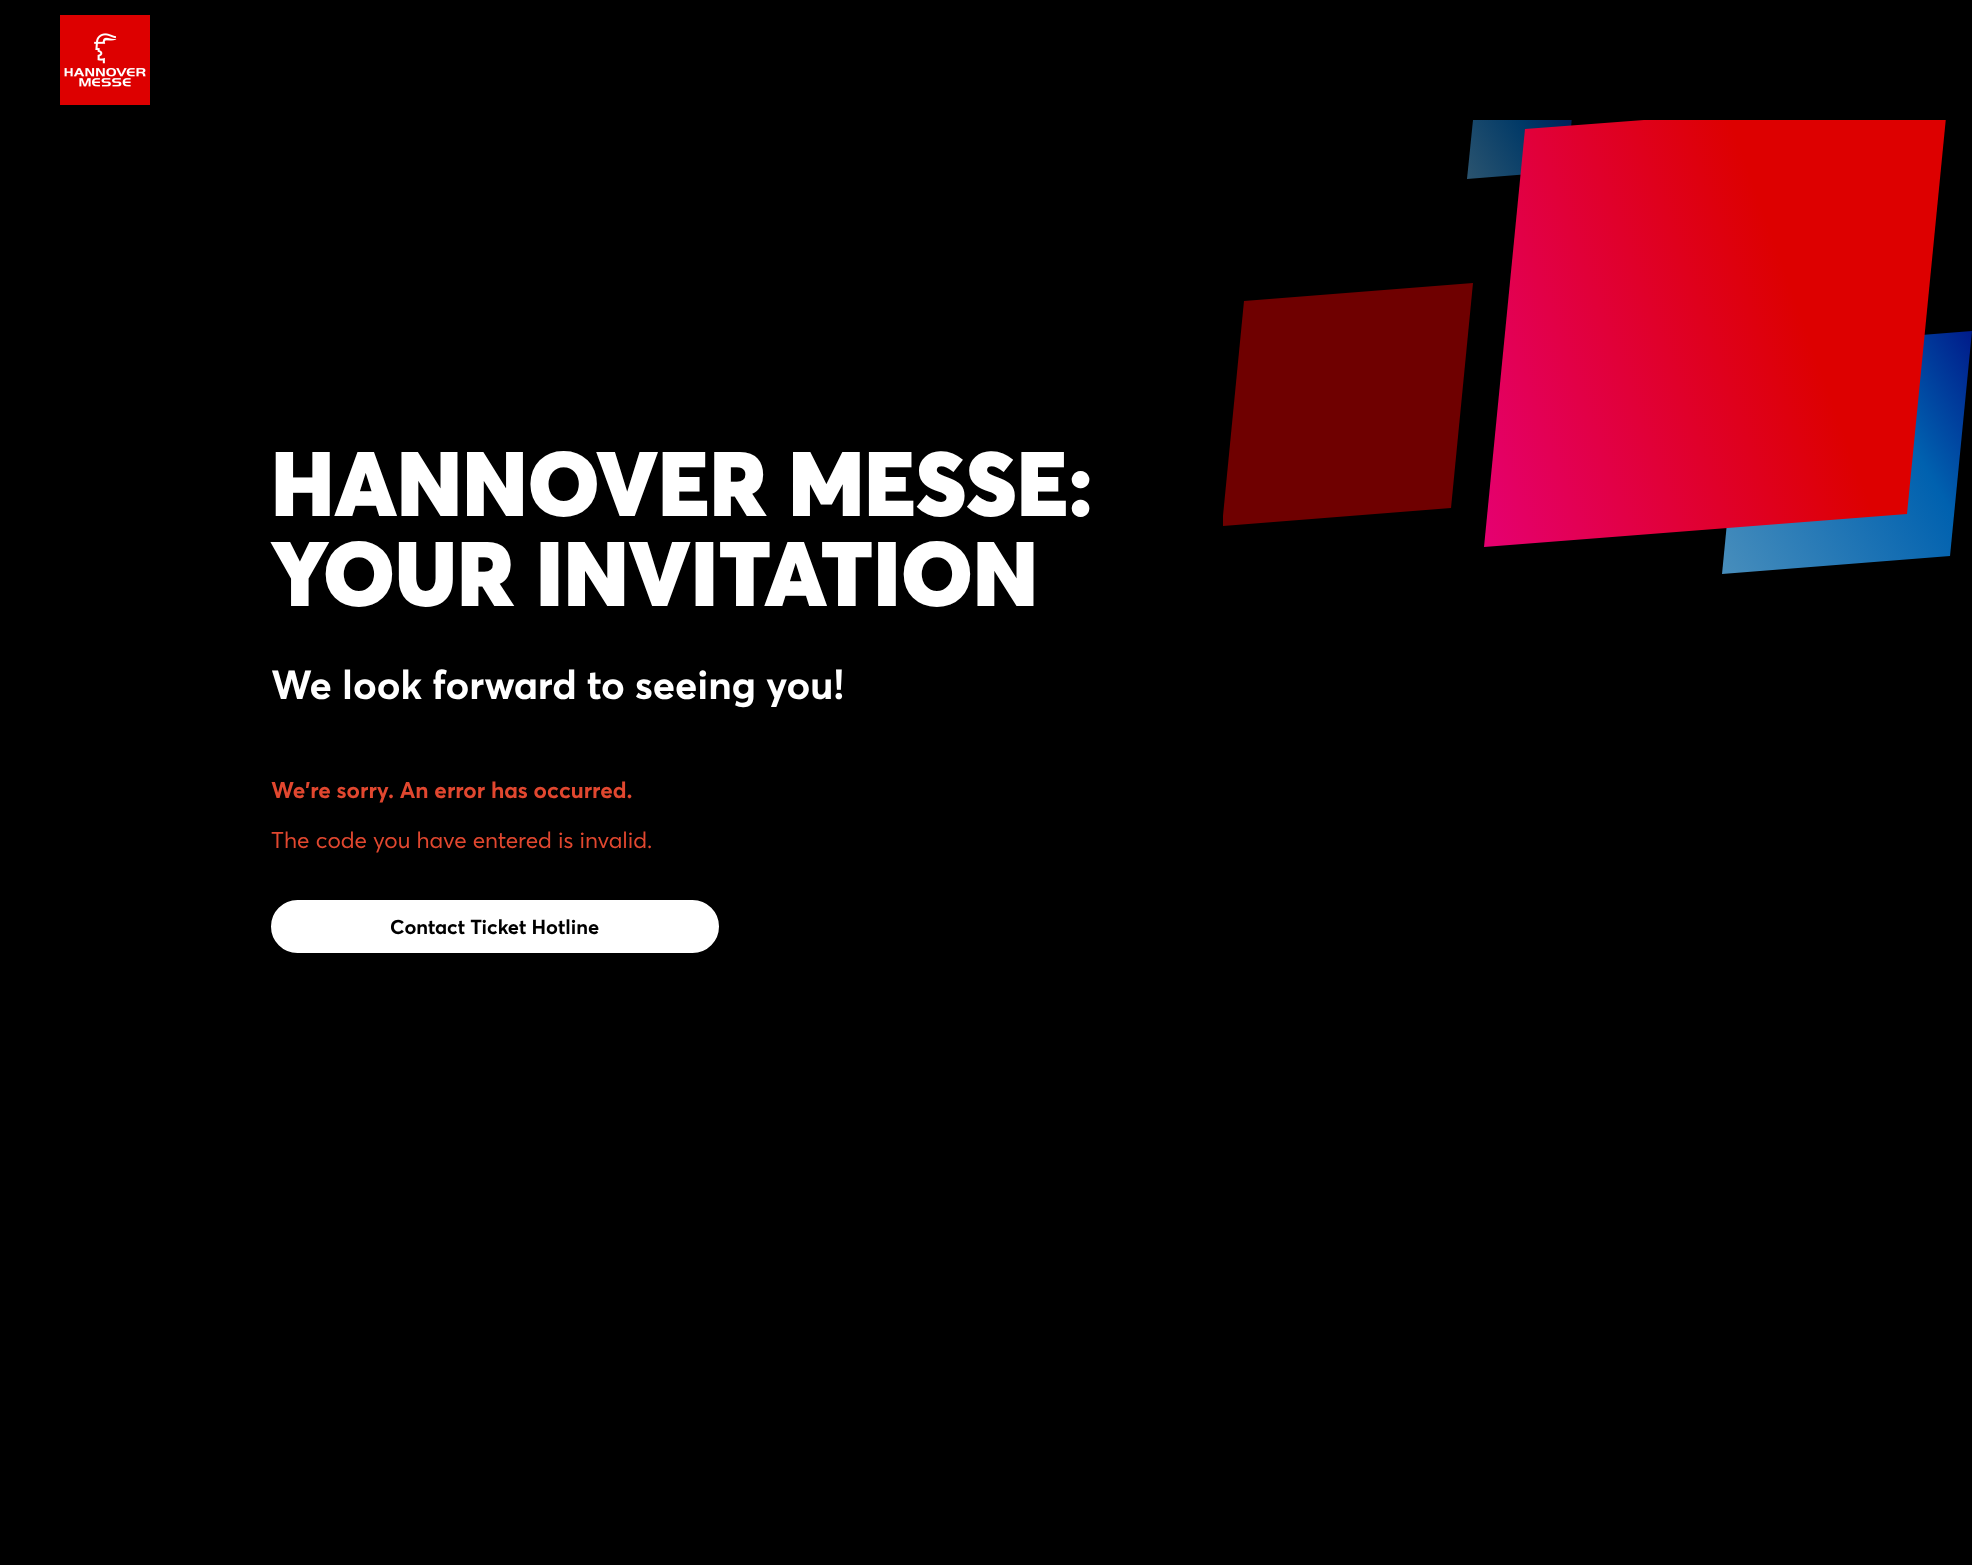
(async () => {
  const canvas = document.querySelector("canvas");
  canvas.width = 1972;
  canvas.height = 1565;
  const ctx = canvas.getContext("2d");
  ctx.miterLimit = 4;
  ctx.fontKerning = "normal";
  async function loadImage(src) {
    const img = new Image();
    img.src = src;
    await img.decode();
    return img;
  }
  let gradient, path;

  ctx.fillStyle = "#000000";
  ctx.fillRect(0, 0, 1972, 1565);
  ctx.drawImage(await loadImage("img/1.png"), 60, 15, 90, 90);
  ctx.save();
  ctx.beginPath();
  ctx.rect(1223, 120, 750, 454);
  ctx.clip();
  gradient = ctx.createLinearGradient(1458, 163, 1586, 89);
  gradient.addColorStop(0, "#2b546f");
  gradient.addColorStop(0.51, "#003967");
  gradient.addColorStop(1, "#001051");
  ctx.fillStyle = gradient;
  path = new Path2D("M1567 171L1467 179L1477 81L1576 73Z");
  ctx.fill(path);
  ctx.restore();
  gradient = ctx.createLinearGradient(1700, 537, 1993, 368);
  gradient.addColorStop(0, "#488ebc");
  gradient.addColorStop(0.68, "#0061af");
  gradient.addColorStop(1, "#001b8a");
  ctx.fillStyle = gradient;
  path = new Path2D("M1950 556L1722 574L1744 349L1972 331Z");
  ctx.fill(path);
  ctx.save();
  ctx.beginPath();
  ctx.rect(1223, 120, 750, 454);
  ctx.clip();
  gradient = ctx.createLinearGradient(1439, 422, 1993, 221);
  gradient.addColorStop(0, "#e50071");
  gradient.addColorStop(0.64, "#dd0000");
  ctx.fillStyle = gradient;
  path = new Path2D("M1907 514L1484 547L1525 129L1948 97Z");
  ctx.fill(path);
  ctx.fillStyle = "#6f0000";
  path = new Path2D("M1451 508L1222 526L1244 301L1473 283Z");
  ctx.fill(path);
  ctx.restore();
  ctx.fillStyle = "#ffffff";
  ctx.beginPath();
  ctx.roundRect(273, 902, 444, 49, 24.5);
  ctx.fill();
  ctx.strokeStyle = "#ffffff";
  ctx.lineWidth = 4;
  ctx.stroke();
  ctx.font = "900 90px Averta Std";
  ctx.fillText("HANNOVER MESSE:", 271, 516);
  ctx.fillText("YOUR INVITATION", 271, 606);
  ctx.font = "bold 40px Averta Std";
  ctx.fillText("We look forward to seeing you!", 271, 699);
  ctx.font = "bold 22.5px Averta Std";
  ctx.fillStyle = "#e1472f";
  ctx.fillText("We're sorry. An error has occurred.", 271, 798);
  ctx.font = "22.5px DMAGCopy";
  ctx.fillText("The code you have entered is invalid.", 271, 848);
  ctx.font = "bold 20px Averta Std";
  ctx.fillStyle = "#000000";
  ctx.fillText("Contact Ticket Hotline", 390, 934);
})();
